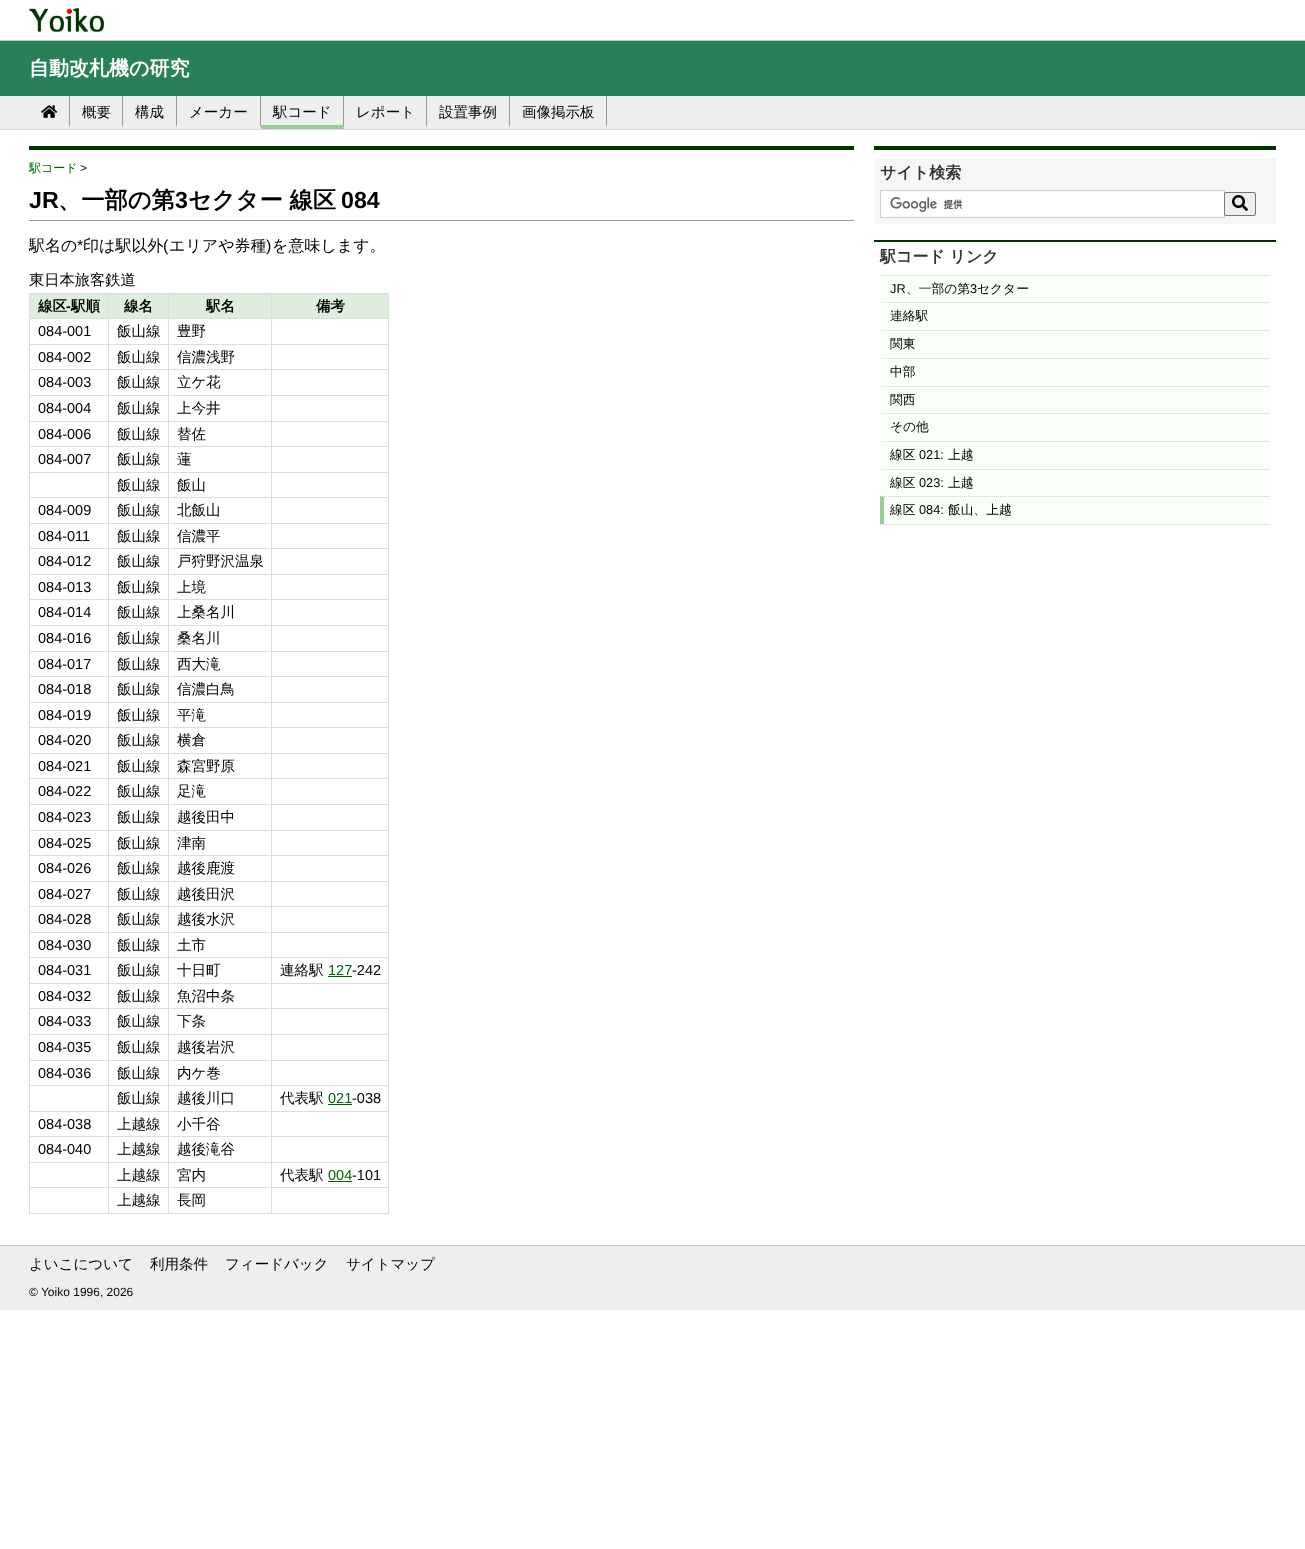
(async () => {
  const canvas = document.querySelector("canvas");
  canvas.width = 1305;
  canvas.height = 1549;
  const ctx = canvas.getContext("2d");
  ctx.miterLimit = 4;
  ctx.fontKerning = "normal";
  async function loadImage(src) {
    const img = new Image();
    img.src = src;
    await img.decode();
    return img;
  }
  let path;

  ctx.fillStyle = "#ffffff";
  ctx.fillRect(0, 0, 1305, 1549);
  ctx.fillStyle = "#bbccbb";
  ctx.fillRect(0, 40, 1305, 1);
  ctx.drawImage(await loadImage("img/1.png"), 29, 8, 75, 24);
  for (const [x, y, w, h, color] of [
    [0, 41, 1305, 55, "#278056"],
    [0, 96, 1305, 33, "#eeeeee"],
    [0, 129, 1305, 1, "#dddddd"],
  ]) {
    ctx.fillStyle = color;
    ctx.fillRect(x, y, w, h);
  }
  ctx.fillStyle = "#999999";
  path = new Path2D("M70 96V129L69 125V96Z");
  ctx.fill(path);
  ctx.fillStyle = "#eeeeee";
  path = new Path2D("M70 129H29V125H69Z");
  ctx.fill(path);
  ctx.drawImage(await loadImage("img/2.png"), 41, 105, 17, 13);
  ctx.fillStyle = "#999999";
  path = new Path2D("M123 96V129L122 125V96Z");
  ctx.fill(path);
  ctx.fillStyle = "#eeeeee";
  path = new Path2D("M123 129H70V125H122Z");
  ctx.fill(path);
  ctx.fillStyle = "#999999";
  path = new Path2D("M177 96V129L176 125V96Z");
  ctx.fill(path);
  ctx.fillStyle = "#eeeeee";
  path = new Path2D("M177 129H123V125H176Z");
  ctx.fill(path);
  ctx.fillStyle = "#999999";
  path = new Path2D("M261 96V129L260 125V96Z");
  ctx.fill(path);
  ctx.fillStyle = "#eeeeee";
  path = new Path2D("M261 129H177V125H260Z");
  ctx.fill(path);
  ctx.fillStyle = "#999999";
  path = new Path2D("M344 96V129L343 125V96Z");
  ctx.fill(path);
  ctx.fillStyle = "#99cc99";
  path = new Path2D("M344 129H261V125H343Z");
  ctx.fill(path);
  ctx.fillStyle = "#999999";
  path = new Path2D("M427 96V129L426 125V96Z");
  ctx.fill(path);
  ctx.fillStyle = "#eeeeee";
  path = new Path2D("M427 129H344V125H426Z");
  ctx.fill(path);
  ctx.fillStyle = "#999999";
  path = new Path2D("M510 96V129L509 125V96Z");
  ctx.fill(path);
  ctx.fillStyle = "#eeeeee";
  path = new Path2D("M510 129H427V125H509Z");
  ctx.fill(path);
  ctx.fillStyle = "#999999";
  path = new Path2D("M607 96V129L606 125V96Z");
  ctx.fill(path);
  ctx.fillStyle = "#eeeeee";
  path = new Path2D("M607 129H510V125H606Z");
  ctx.fill(path);
  for (const [x, y, w, h, color] of [
    [29, 146, 825, 4, "#003300"],
    [29, 220, 825, 1, "#999999"],
    [30, 294, 78, 24, "#ddeedd"],
    [271, 293, 118, 1, "#dddddd"],
    [271, 318, 118, 1, "#dddddd"],
    [271, 344, 118, 1, "#dddddd"],
    [271, 369, 118, 1, "#dddddd"],
    [271, 395, 118, 1, "#dddddd"],
    [271, 421, 118, 1, "#dddddd"],
    [271, 446, 118, 1, "#dddddd"],
    [271, 472, 118, 1, "#dddddd"],
    [271, 497, 118, 1, "#dddddd"],
    [271, 523, 118, 1, "#dddddd"],
    [271, 548, 118, 1, "#dddddd"],
    [271, 574, 118, 1, "#dddddd"],
    [271, 599, 118, 1, "#dddddd"],
    [271, 625, 118, 1, "#dddddd"],
    [271, 651, 118, 1, "#dddddd"],
    [271, 676, 118, 1, "#dddddd"],
    [271, 702, 118, 1, "#dddddd"],
    [271, 727, 118, 1, "#dddddd"],
    [271, 753, 118, 1, "#dddddd"],
    [271, 778, 118, 1, "#dddddd"],
    [271, 804, 118, 1, "#dddddd"],
    [271, 830, 118, 1, "#dddddd"],
    [271, 855, 118, 1, "#dddddd"],
    [271, 881, 118, 1, "#dddddd"],
    [271, 906, 118, 1, "#dddddd"],
    [271, 932, 118, 1, "#dddddd"],
    [271, 957, 118, 1, "#dddddd"],
    [271, 983, 118, 1, "#dddddd"],
    [271, 1008, 118, 1, "#dddddd"],
    [271, 1034, 118, 1, "#dddddd"],
    [271, 1060, 118, 1, "#dddddd"],
    [271, 1085, 118, 1, "#dddddd"],
    [271, 1111, 118, 1, "#dddddd"],
    [271, 1136, 118, 1, "#dddddd"],
    [271, 1162, 118, 1, "#dddddd"],
    [271, 1187, 118, 1, "#dddddd"],
    [388, 1187, 1, 27, "#dddddd"],
    [271, 1213, 118, 1, "#dddddd"],
    [271, 1187, 1, 27, "#dddddd"],
    [168, 1187, 104, 1, "#dddddd"],
    [271, 1162, 1, 26, "#dddddd"],
    [168, 1162, 104, 1, "#dddddd"],
    [271, 1136, 1, 27, "#dddddd"],
    [168, 1136, 104, 1, "#dddddd"],
    [271, 1111, 1, 26, "#dddddd"],
    [168, 1111, 104, 1, "#dddddd"],
    [271, 1085, 1, 27, "#dddddd"],
    [168, 1085, 104, 1, "#dddddd"],
    [271, 1060, 1, 26, "#dddddd"],
    [168, 1060, 104, 1, "#dddddd"],
    [271, 1034, 1, 27, "#dddddd"],
    [168, 1034, 104, 1, "#dddddd"],
    [271, 1008, 1, 27, "#dddddd"],
    [168, 1008, 104, 1, "#dddddd"],
    [271, 983, 1, 26, "#dddddd"],
    [168, 983, 104, 1, "#dddddd"],
    [271, 957, 1, 27, "#dddddd"],
    [168, 957, 104, 1, "#dddddd"],
    [271, 932, 1, 26, "#dddddd"],
    [168, 932, 104, 1, "#dddddd"],
    [271, 906, 1, 27, "#dddddd"],
    [168, 906, 104, 1, "#dddddd"],
    [271, 881, 1, 26, "#dddddd"],
    [168, 881, 104, 1, "#dddddd"],
    [271, 855, 1, 27, "#dddddd"],
    [168, 855, 104, 1, "#dddddd"],
    [271, 830, 1, 26, "#dddddd"],
    [168, 830, 104, 1, "#dddddd"],
    [271, 804, 1, 27, "#dddddd"],
    [168, 804, 104, 1, "#dddddd"],
    [271, 778, 1, 27, "#dddddd"],
    [168, 778, 104, 1, "#dddddd"],
    [271, 753, 1, 26, "#dddddd"],
    [168, 753, 104, 1, "#dddddd"],
    [271, 727, 1, 27, "#dddddd"],
    [168, 727, 104, 1, "#dddddd"],
    [271, 702, 1, 26, "#dddddd"],
    [168, 702, 104, 1, "#dddddd"],
    [271, 676, 1, 27, "#dddddd"],
    [168, 676, 104, 1, "#dddddd"],
    [271, 651, 1, 26, "#dddddd"],
    [168, 651, 104, 1, "#dddddd"],
    [271, 625, 1, 27, "#dddddd"],
    [168, 625, 104, 1, "#dddddd"],
    [271, 599, 1, 27, "#dddddd"],
    [168, 599, 104, 1, "#dddddd"],
    [271, 574, 1, 26, "#dddddd"],
    [168, 574, 104, 1, "#dddddd"],
    [271, 548, 1, 27, "#dddddd"],
    [168, 548, 104, 1, "#dddddd"],
    [271, 523, 1, 26, "#dddddd"],
    [168, 523, 104, 1, "#dddddd"],
    [271, 497, 1, 27, "#dddddd"],
    [168, 497, 104, 1, "#dddddd"],
    [271, 472, 1, 26, "#dddddd"],
    [168, 472, 104, 1, "#dddddd"],
    [271, 446, 1, 27, "#dddddd"],
    [168, 446, 104, 1, "#dddddd"],
    [271, 421, 1, 26, "#dddddd"],
    [168, 421, 104, 1, "#dddddd"],
    [271, 395, 1, 27, "#dddddd"],
    [168, 395, 104, 1, "#dddddd"],
    [271, 369, 1, 27, "#dddddd"],
    [168, 369, 104, 1, "#dddddd"],
    [271, 344, 1, 26, "#dddddd"],
    [168, 344, 104, 1, "#dddddd"],
    [271, 318, 1, 27, "#dddddd"],
    [168, 318, 104, 1, "#dddddd"],
    [271, 293, 1, 26, "#dddddd"],
    [168, 293, 104, 1, "#dddddd"],
    [168, 1213, 104, 1, "#dddddd"],
    [168, 1187, 1, 27, "#dddddd"],
    [108, 1187, 61, 1, "#dddddd"],
    [168, 1162, 1, 26, "#dddddd"],
    [108, 1162, 61, 1, "#dddddd"],
    [168, 1136, 1, 27, "#dddddd"],
    [108, 1136, 61, 1, "#dddddd"],
    [168, 1111, 1, 26, "#dddddd"],
    [108, 1111, 61, 1, "#dddddd"],
    [168, 1085, 1, 27, "#dddddd"],
    [108, 1085, 61, 1, "#dddddd"],
    [168, 1060, 1, 26, "#dddddd"],
    [108, 1060, 61, 1, "#dddddd"],
    [168, 1034, 1, 27, "#dddddd"],
    [108, 1034, 61, 1, "#dddddd"],
    [168, 1008, 1, 27, "#dddddd"],
    [108, 1008, 61, 1, "#dddddd"],
    [168, 983, 1, 26, "#dddddd"],
    [108, 983, 61, 1, "#dddddd"],
    [168, 957, 1, 27, "#dddddd"],
    [108, 957, 61, 1, "#dddddd"],
    [168, 932, 1, 26, "#dddddd"],
    [108, 932, 61, 1, "#dddddd"],
    [168, 906, 1, 27, "#dddddd"],
    [108, 906, 61, 1, "#dddddd"],
    [168, 881, 1, 26, "#dddddd"],
    [108, 881, 61, 1, "#dddddd"],
    [168, 855, 1, 27, "#dddddd"],
    [108, 855, 61, 1, "#dddddd"],
    [168, 830, 1, 26, "#dddddd"],
    [108, 830, 61, 1, "#dddddd"],
    [168, 804, 1, 27, "#dddddd"],
    [108, 804, 61, 1, "#dddddd"],
    [168, 778, 1, 27, "#dddddd"],
    [108, 778, 61, 1, "#dddddd"],
    [168, 753, 1, 26, "#dddddd"],
    [108, 753, 61, 1, "#dddddd"],
    [168, 727, 1, 27, "#dddddd"],
    [108, 727, 61, 1, "#dddddd"],
    [168, 702, 1, 26, "#dddddd"],
    [108, 702, 61, 1, "#dddddd"],
    [168, 676, 1, 27, "#dddddd"],
    [108, 676, 61, 1, "#dddddd"],
    [168, 651, 1, 26, "#dddddd"],
    [108, 651, 61, 1, "#dddddd"],
    [168, 625, 1, 27, "#dddddd"],
    [108, 625, 61, 1, "#dddddd"],
    [168, 599, 1, 27, "#dddddd"],
    [108, 599, 61, 1, "#dddddd"],
    [168, 574, 1, 26, "#dddddd"],
    [108, 574, 61, 1, "#dddddd"],
    [168, 548, 1, 27, "#dddddd"],
    [108, 548, 61, 1, "#dddddd"],
    [168, 523, 1, 26, "#dddddd"],
    [108, 523, 61, 1, "#dddddd"],
    [168, 497, 1, 27, "#dddddd"],
    [108, 497, 61, 1, "#dddddd"],
    [168, 472, 1, 26, "#dddddd"],
    [108, 472, 61, 1, "#dddddd"],
    [168, 446, 1, 27, "#dddddd"],
    [108, 446, 61, 1, "#dddddd"],
    [168, 421, 1, 26, "#dddddd"],
    [108, 421, 61, 1, "#dddddd"],
    [168, 395, 1, 27, "#dddddd"],
    [108, 395, 61, 1, "#dddddd"],
    [168, 369, 1, 27, "#dddddd"],
    [108, 369, 61, 1, "#dddddd"],
    [168, 344, 1, 26, "#dddddd"],
    [108, 344, 61, 1, "#dddddd"],
    [168, 318, 1, 27, "#dddddd"],
    [108, 318, 61, 1, "#dddddd"],
    [168, 293, 1, 26, "#dddddd"],
    [108, 293, 61, 1, "#dddddd"],
    [108, 1213, 61, 1, "#dddddd"],
    [108, 1187, 1, 27, "#dddddd"],
    [29, 1187, 80, 1, "#dddddd"],
    [108, 1162, 1, 26, "#dddddd"],
    [29, 1162, 80, 1, "#dddddd"],
    [108, 1136, 1, 27, "#dddddd"],
    [29, 1136, 80, 1, "#dddddd"],
    [108, 1111, 1, 26, "#dddddd"],
    [29, 1111, 80, 1, "#dddddd"],
    [108, 1085, 1, 27, "#dddddd"],
    [29, 1085, 80, 1, "#dddddd"],
    [108, 1060, 1, 26, "#dddddd"],
    [29, 1060, 80, 1, "#dddddd"],
    [108, 1034, 1, 27, "#dddddd"],
    [29, 1034, 80, 1, "#dddddd"],
    [108, 1008, 1, 27, "#dddddd"],
    [29, 1008, 80, 1, "#dddddd"],
    [108, 983, 1, 26, "#dddddd"],
    [29, 983, 80, 1, "#dddddd"],
    [108, 957, 1, 27, "#dddddd"],
    [29, 957, 80, 1, "#dddddd"],
    [108, 932, 1, 26, "#dddddd"],
    [29, 932, 80, 1, "#dddddd"],
    [108, 906, 1, 27, "#dddddd"],
    [29, 906, 80, 1, "#dddddd"],
    [108, 881, 1, 26, "#dddddd"],
    [29, 881, 80, 1, "#dddddd"],
    [108, 855, 1, 27, "#dddddd"],
    [29, 855, 80, 1, "#dddddd"],
    [108, 830, 1, 26, "#dddddd"],
    [29, 830, 80, 1, "#dddddd"],
    [108, 804, 1, 27, "#dddddd"],
    [29, 804, 80, 1, "#dddddd"],
    [108, 778, 1, 27, "#dddddd"],
    [29, 778, 80, 1, "#dddddd"],
    [108, 753, 1, 26, "#dddddd"],
    [29, 753, 80, 1, "#dddddd"],
    [108, 727, 1, 27, "#dddddd"],
    [29, 727, 80, 1, "#dddddd"],
    [108, 702, 1, 26, "#dddddd"],
    [29, 702, 80, 1, "#dddddd"],
    [108, 676, 1, 27, "#dddddd"],
    [29, 676, 80, 1, "#dddddd"],
    [108, 651, 1, 26, "#dddddd"],
    [29, 651, 80, 1, "#dddddd"],
    [108, 625, 1, 27, "#dddddd"],
    [29, 625, 80, 1, "#dddddd"],
    [108, 599, 1, 27, "#dddddd"],
    [29, 599, 80, 1, "#dddddd"],
    [108, 574, 1, 26, "#dddddd"],
    [29, 574, 80, 1, "#dddddd"],
    [108, 548, 1, 27, "#dddddd"],
    [29, 548, 80, 1, "#dddddd"],
    [108, 523, 1, 26, "#dddddd"],
    [29, 523, 80, 1, "#dddddd"],
    [108, 497, 1, 27, "#dddddd"],
    [29, 497, 80, 1, "#dddddd"],
    [108, 472, 1, 26, "#dddddd"],
    [29, 472, 80, 1, "#dddddd"],
    [108, 446, 1, 27, "#dddddd"],
    [29, 446, 80, 1, "#dddddd"],
    [108, 421, 1, 26, "#dddddd"],
    [29, 421, 80, 1, "#dddddd"],
    [108, 395, 1, 27, "#dddddd"],
    [29, 395, 80, 1, "#dddddd"],
    [108, 369, 1, 27, "#dddddd"],
    [29, 369, 80, 1, "#dddddd"],
    [108, 344, 1, 26, "#dddddd"],
    [29, 344, 80, 1, "#dddddd"],
    [108, 318, 1, 27, "#dddddd"],
    [29, 318, 80, 1, "#dddddd"],
    [108, 293, 1, 26, "#dddddd"],
    [29, 293, 80, 1, "#dddddd"],
    [29, 1213, 80, 1, "#dddddd"],
    [29, 1187, 1, 27, "#dddddd"],
    [29, 1162, 1, 26, "#dddddd"],
    [29, 1136, 1, 27, "#dddddd"],
    [29, 1111, 1, 26, "#dddddd"],
    [29, 1085, 1, 27, "#dddddd"],
    [29, 1060, 1, 26, "#dddddd"],
    [29, 1034, 1, 27, "#dddddd"],
    [29, 1008, 1, 27, "#dddddd"],
    [29, 983, 1, 26, "#dddddd"],
    [29, 957, 1, 27, "#dddddd"],
    [29, 932, 1, 26, "#dddddd"],
    [29, 906, 1, 27, "#dddddd"],
    [29, 881, 1, 26, "#dddddd"],
    [29, 855, 1, 27, "#dddddd"],
    [29, 830, 1, 26, "#dddddd"],
    [29, 804, 1, 27, "#dddddd"],
    [29, 778, 1, 27, "#dddddd"],
    [29, 753, 1, 26, "#dddddd"],
    [29, 727, 1, 27, "#dddddd"],
    [29, 702, 1, 26, "#dddddd"],
    [29, 676, 1, 27, "#dddddd"],
    [29, 651, 1, 26, "#dddddd"],
    [29, 625, 1, 27, "#dddddd"],
    [29, 599, 1, 27, "#dddddd"],
    [29, 574, 1, 26, "#dddddd"],
    [29, 548, 1, 27, "#dddddd"],
    [29, 523, 1, 26, "#dddddd"],
    [29, 497, 1, 27, "#dddddd"],
    [29, 472, 1, 26, "#dddddd"],
    [29, 446, 1, 27, "#dddddd"],
    [29, 421, 1, 26, "#dddddd"],
    [29, 395, 1, 27, "#dddddd"],
    [29, 369, 1, 27, "#dddddd"],
    [29, 344, 1, 26, "#dddddd"],
    [29, 318, 1, 27, "#dddddd"],
    [29, 293, 1, 26, "#dddddd"],
    [109, 294, 59, 24, "#ddeedd"],
    [169, 294, 102, 24, "#ddeedd"],
    [272, 294, 116, 24, "#ddeedd"],
    [388, 1162, 1, 26, "#dddddd"],
    [388, 1136, 1, 27, "#dddddd"],
    [388, 1111, 1, 26, "#dddddd"],
    [388, 1085, 1, 27, "#dddddd"],
    [388, 1060, 1, 26, "#dddddd"],
    [388, 1034, 1, 27, "#dddddd"],
    [388, 1008, 1, 27, "#dddddd"],
    [388, 983, 1, 26, "#dddddd"],
    [388, 957, 1, 27, "#dddddd"],
    [388, 932, 1, 26, "#dddddd"],
    [388, 906, 1, 27, "#dddddd"],
    [388, 881, 1, 26, "#dddddd"],
    [388, 855, 1, 27, "#dddddd"],
    [388, 830, 1, 26, "#dddddd"],
    [388, 804, 1, 27, "#dddddd"],
    [388, 778, 1, 27, "#dddddd"],
    [388, 753, 1, 26, "#dddddd"],
    [388, 727, 1, 27, "#dddddd"],
    [388, 702, 1, 26, "#dddddd"],
    [388, 676, 1, 27, "#dddddd"],
    [388, 651, 1, 26, "#dddddd"],
    [388, 625, 1, 27, "#dddddd"],
    [388, 599, 1, 27, "#dddddd"],
    [388, 574, 1, 26, "#dddddd"],
    [388, 548, 1, 27, "#dddddd"],
    [388, 523, 1, 26, "#dddddd"],
    [388, 497, 1, 27, "#dddddd"],
    [388, 472, 1, 26, "#dddddd"],
    [388, 446, 1, 27, "#dddddd"],
    [388, 421, 1, 26, "#dddddd"],
    [388, 395, 1, 27, "#dddddd"],
    [388, 369, 1, 27, "#dddddd"],
    [388, 344, 1, 26, "#dddddd"],
    [388, 318, 1, 27, "#dddddd"],
    [388, 293, 1, 26, "#dddddd"],
    [328, 976, 24, 1, "#006600"],
    [328, 1104, 24, 1, "#006600"],
    [328, 1181, 24, 1, "#006600"],
    [874, 146, 402, 4, "#003300"],
    [874, 158, 402, 66, "#f6f6f6"],
    [881, 191, 343, 26, "#ffffff"],
  ]) {
    ctx.fillStyle = color;
    ctx.fillRect(x, y, w, h);
  }
  ctx.drawImage(await loadImage("img/3.png"), 890, 197, 73, 15);
  ctx.strokeStyle = "#cccccc";
  ctx.strokeRect(880.5, 190.5, 344, 27);
  ctx.fillStyle = "#efefef";
  ctx.beginPath();
  ctx.roundRect(1224.5, 192.5, 31, 23, 1.5);
  ctx.fill();
  ctx.strokeStyle = "#767676";
  ctx.stroke();
  ctx.drawImage(await loadImage("img/4.png"), 1232, 195, 16, 16);
  ctx.fillStyle = "#003300";
  ctx.fillRect(874, 240, 402, 2);
  ctx.fillStyle = "#f9fff9";
  ctx.fillRect(881, 275, 389, 250);
  path = new Path2D("M880 275.5H1270");
  ctx.strokeStyle = "#cccccc";
  ctx.setLineDash([1, 1]);
  ctx.stroke(path);
  path = new Path2D("M880 302V275L884 276V302Z");
  ctx.fill(path);
  path = new Path2D("M880 302.5H1270");
  ctx.stroke(path);
  path = new Path2D("M880 330V302L884 303V330Z");
  ctx.fill(path);
  path = new Path2D("M880 330.5H1270");
  ctx.stroke(path);
  path = new Path2D("M880 358V330L884 331V358Z");
  ctx.fill(path);
  path = new Path2D("M880 358.5H1270");
  ctx.stroke(path);
  path = new Path2D("M880 386V358L884 359V386Z");
  ctx.fill(path);
  path = new Path2D("M880 386.5H1270");
  ctx.stroke(path);
  path = new Path2D("M880 413V386L884 387V413Z");
  ctx.fill(path);
  path = new Path2D("M880 413.5H1270");
  ctx.stroke(path);
  path = new Path2D("M880 441V413L884 414V441Z");
  ctx.fill(path);
  path = new Path2D("M880 441.5H1270");
  ctx.stroke(path);
  path = new Path2D("M880 469V441L884 442V469Z");
  ctx.fill(path);
  path = new Path2D("M880 469.5H1270");
  ctx.stroke(path);
  path = new Path2D("M880 496V469L884 470V496Z");
  ctx.fill(path);
  path = new Path2D("M880 524.5H1270");
  ctx.stroke(path);
  path = new Path2D("M880 496.5H1270");
  ctx.stroke(path);
  ctx.fillStyle = "#99cc99";
  path = new Path2D("M880 524V496L884 497V524Z");
  ctx.fill(path);
  ctx.fillStyle = "#eeeeee";
  ctx.fillRect(0, 1246, 1305, 64);
  ctx.fillStyle = "#bbccbb";
  ctx.fillRect(0, 1245, 1305, 1);
  ctx.font = "bold 20px WenQuanYi Zen Hei";
  ctx.fillStyle = "#ffffff";
  ctx.fillText("自動改札機の研究", 29, 75);
  ctx.font = "500 14.5px WenQuanYi Zen Hei";
  ctx.fillStyle = "#000000";
  for (const [text, x, y] of [
    ["概要", 82, 117],
    ["構成", 135, 117],
    ["メーカー", 189, 117],
    ["駅コード", 273, 117],
    ["レポート", 356, 117],
    ["設置事例", 439, 117],
    ["画像掲示板", 522, 117],
  ]) {
    ctx.fillText(text, x, y);
  }
  ctx.font = "500 12px WenQuanYi Zen Hei";
  ctx.fillStyle = "#006600";
  ctx.fillText("駅コード", 29, 172);
  ctx.font = "12px Liberation Sans";
  ctx.fillStyle = "#000000";
  ctx.fillText(">", 80, 172);
  ctx.font = "bold 23.25px Liberation Sans";
  ctx.fillText("JR", 29, 208);
  ctx.font = "bold 23.25px WenQuanYi Zen Hei";
  ctx.fillText("、一部の第", 58, 208);
  ctx.font = "bold 23.25px Liberation Sans";
  ctx.fillText("3", 175, 208);
  ctx.font = "bold 23.25px WenQuanYi Zen Hei";
  ctx.fillText("セクター 線区", 188, 208);
  ctx.font = "bold 23.25px Liberation Sans";
  ctx.fillText("084", 341, 208);
  ctx.save();
  ctx.beginPath();
  ctx.rect(29, 150, 825, 1080);
  ctx.clip();
  ctx.font = "500 16px WenQuanYi Zen Hei";
  ctx.fillText("駅名の", 29, 251);
  ctx.restore();
  ctx.font = "16px Liberation Sans";
  ctx.fillText("*", 77, 251);
  ctx.font = "500 16px WenQuanYi Zen Hei";
  ctx.fillText("印は駅以外", 83, 251);
  ctx.font = "16px Liberation Sans";
  ctx.fillText("(", 163, 251);
  ctx.font = "500 16px WenQuanYi Zen Hei";
  ctx.fillText("エリアや券種", 169, 251);
  ctx.font = "16px Liberation Sans";
  ctx.fillText(")", 266, 251);
  ctx.font = "500 16px WenQuanYi Zen Hei";
  ctx.fillText("を意味します。", 272, 251);
  ctx.font = "500 15.25px WenQuanYi Zen Hei";
  ctx.fillText("東日本旅客鉄道", 29, 285);
  ctx.font = "bold 14.5px WenQuanYi Zen Hei";
  ctx.fillText("線区", 38, 311);
  ctx.font = "bold 14.5px Liberation Sans";
  ctx.fillText("-", 66, 311);
  ctx.font = "bold 14.5px WenQuanYi Zen Hei";
  for (const [text, x, y] of [
    ["駅順", 71, 311],
    ["線名", 124, 311],
    ["駅名", 206, 311],
    ["備考", 316, 311],
  ]) {
    ctx.fillText(text, x, y);
  }
  ctx.font = "14.5px Liberation Sans";
  ctx.fillText("084-001", 38, 336);
  ctx.font = "500 14.5px WenQuanYi Zen Hei";
  ctx.fillText("飯山線", 117, 336);
  ctx.fillText("豊野", 177, 336);
  ctx.font = "14.5px Liberation Sans";
  ctx.fillText("084-002", 38, 362);
  ctx.font = "500 14.5px WenQuanYi Zen Hei";
  ctx.fillText("飯山線", 117, 362);
  ctx.fillText("信濃浅野", 177, 362);
  ctx.font = "14.5px Liberation Sans";
  ctx.fillText("084-003", 38, 387);
  ctx.font = "500 14.5px WenQuanYi Zen Hei";
  ctx.fillText("飯山線", 117, 387);
  ctx.fillText("立ケ花", 177, 387);
  ctx.font = "14.5px Liberation Sans";
  ctx.fillText("084-004", 38, 413);
  ctx.font = "500 14.5px WenQuanYi Zen Hei";
  ctx.fillText("飯山線", 117, 413);
  ctx.fillText("上今井", 177, 413);
  ctx.font = "14.5px Liberation Sans";
  ctx.fillText("084-006", 38, 439);
  ctx.font = "500 14.5px WenQuanYi Zen Hei";
  ctx.fillText("飯山線", 117, 439);
  ctx.fillText("替佐", 177, 439);
  ctx.font = "14.5px Liberation Sans";
  ctx.fillText("084-007", 38, 464);
  ctx.font = "500 14.5px WenQuanYi Zen Hei";
  for (const [text, x, y] of [
    ["飯山線", 117, 464],
    ["蓮", 177, 464],
    ["飯山線", 117, 490],
    ["飯山", 177, 490],
  ]) {
    ctx.fillText(text, x, y);
  }
  ctx.font = "14.5px Liberation Sans";
  ctx.fillText("084-009", 38, 515);
  ctx.font = "500 14.5px WenQuanYi Zen Hei";
  ctx.fillText("飯山線", 117, 515);
  ctx.fillText("北飯山", 177, 515);
  ctx.font = "14.5px Liberation Sans";
  ctx.fillText("084-011", 38, 541);
  ctx.font = "500 14.5px WenQuanYi Zen Hei";
  ctx.fillText("飯山線", 117, 541);
  ctx.fillText("信濃平", 177, 541);
  ctx.font = "14.5px Liberation Sans";
  ctx.fillText("084-012", 38, 566);
  ctx.font = "500 14.5px WenQuanYi Zen Hei";
  ctx.fillText("飯山線", 117, 566);
  ctx.fillText("戸狩野沢温泉", 177, 566);
  ctx.font = "14.5px Liberation Sans";
  ctx.fillText("084-013", 38, 592);
  ctx.font = "500 14.5px WenQuanYi Zen Hei";
  ctx.fillText("飯山線", 117, 592);
  ctx.fillText("上境", 177, 592);
  ctx.font = "14.5px Liberation Sans";
  ctx.fillText("084-014", 38, 617);
  ctx.font = "500 14.5px WenQuanYi Zen Hei";
  ctx.fillText("飯山線", 117, 617);
  ctx.fillText("上桑名川", 177, 617);
  ctx.font = "14.5px Liberation Sans";
  ctx.fillText("084-016", 38, 643);
  ctx.font = "500 14.5px WenQuanYi Zen Hei";
  ctx.fillText("飯山線", 117, 643);
  ctx.fillText("桑名川", 177, 643);
  ctx.font = "14.5px Liberation Sans";
  ctx.fillText("084-017", 38, 669);
  ctx.font = "500 14.5px WenQuanYi Zen Hei";
  ctx.fillText("飯山線", 117, 669);
  ctx.fillText("西大滝", 177, 669);
  ctx.font = "14.5px Liberation Sans";
  ctx.fillText("084-018", 38, 694);
  ctx.font = "500 14.5px WenQuanYi Zen Hei";
  ctx.fillText("飯山線", 117, 694);
  ctx.fillText("信濃白鳥", 177, 694);
  ctx.font = "14.5px Liberation Sans";
  ctx.fillText("084-019", 38, 720);
  ctx.font = "500 14.5px WenQuanYi Zen Hei";
  ctx.fillText("飯山線", 117, 720);
  ctx.fillText("平滝", 177, 720);
  ctx.font = "14.5px Liberation Sans";
  ctx.fillText("084-020", 38, 745);
  ctx.font = "500 14.5px WenQuanYi Zen Hei";
  ctx.fillText("飯山線", 117, 745);
  ctx.fillText("横倉", 177, 745);
  ctx.font = "14.5px Liberation Sans";
  ctx.fillText("084-021", 38, 771);
  ctx.font = "500 14.5px WenQuanYi Zen Hei";
  ctx.fillText("飯山線", 117, 771);
  ctx.fillText("森宮野原", 177, 771);
  ctx.font = "14.5px Liberation Sans";
  ctx.fillText("084-022", 38, 796);
  ctx.font = "500 14.5px WenQuanYi Zen Hei";
  ctx.fillText("飯山線", 117, 796);
  ctx.fillText("足滝", 177, 796);
  ctx.font = "14.5px Liberation Sans";
  ctx.fillText("084-023", 38, 822);
  ctx.font = "500 14.5px WenQuanYi Zen Hei";
  ctx.fillText("飯山線", 117, 822);
  ctx.fillText("越後田中", 177, 822);
  ctx.font = "14.5px Liberation Sans";
  ctx.fillText("084-025", 38, 848);
  ctx.font = "500 14.5px WenQuanYi Zen Hei";
  ctx.fillText("飯山線", 117, 848);
  ctx.fillText("津南", 177, 848);
  ctx.font = "14.5px Liberation Sans";
  ctx.fillText("084-026", 38, 873);
  ctx.font = "500 14.5px WenQuanYi Zen Hei";
  ctx.fillText("飯山線", 117, 873);
  ctx.fillText("越後鹿渡", 177, 873);
  ctx.font = "14.5px Liberation Sans";
  ctx.fillText("084-027", 38, 899);
  ctx.font = "500 14.5px WenQuanYi Zen Hei";
  ctx.fillText("飯山線", 117, 899);
  ctx.fillText("越後田沢", 177, 899);
  ctx.font = "14.5px Liberation Sans";
  ctx.fillText("084-028", 38, 924);
  ctx.font = "500 14.5px WenQuanYi Zen Hei";
  ctx.fillText("飯山線", 117, 924);
  ctx.fillText("越後水沢", 177, 924);
  ctx.font = "14.5px Liberation Sans";
  ctx.fillText("084-030", 38, 950);
  ctx.font = "500 14.5px WenQuanYi Zen Hei";
  ctx.fillText("飯山線", 117, 950);
  ctx.fillText("土市", 177, 950);
  ctx.font = "14.5px Liberation Sans";
  ctx.fillText("084-031", 38, 975);
  ctx.font = "500 14.5px WenQuanYi Zen Hei";
  for (const [text, x, y] of [
    ["飯山線", 117, 975],
    ["十日町", 177, 975],
    ["連絡駅", 280, 975],
  ]) {
    ctx.fillText(text, x, y);
  }
  ctx.font = "14.5px Liberation Sans";
  ctx.fillStyle = "#006600";
  ctx.fillText("127", 328, 975);
  ctx.fillStyle = "#000000";
  ctx.fillText("-242", 352, 975);
  ctx.fillText("084-032", 38, 1001);
  ctx.font = "500 14.5px WenQuanYi Zen Hei";
  ctx.fillText("飯山線", 117, 1001);
  ctx.fillText("魚沼中条", 177, 1001);
  ctx.font = "14.5px Liberation Sans";
  ctx.fillText("084-033", 38, 1026);
  ctx.font = "500 14.5px WenQuanYi Zen Hei";
  ctx.fillText("飯山線", 117, 1026);
  ctx.fillText("下条", 177, 1026);
  ctx.font = "14.5px Liberation Sans";
  ctx.fillText("084-035", 38, 1052);
  ctx.font = "500 14.5px WenQuanYi Zen Hei";
  ctx.fillText("飯山線", 117, 1052);
  ctx.fillText("越後岩沢", 177, 1052);
  ctx.font = "14.5px Liberation Sans";
  ctx.fillText("084-036", 38, 1078);
  ctx.font = "500 14.5px WenQuanYi Zen Hei";
  for (const [text, x, y] of [
    ["飯山線", 117, 1078],
    ["内ケ巻", 177, 1078],
    ["飯山線", 117, 1103],
    ["越後川口", 177, 1103],
    ["代表駅", 280, 1103],
  ]) {
    ctx.fillText(text, x, y);
  }
  ctx.font = "14.5px Liberation Sans";
  ctx.fillStyle = "#006600";
  ctx.fillText("021", 328, 1103);
  ctx.fillStyle = "#000000";
  ctx.fillText("-038", 352, 1103);
  ctx.fillText("084-038", 38, 1129);
  ctx.font = "500 14.5px WenQuanYi Zen Hei";
  ctx.fillText("上越線", 117, 1129);
  ctx.fillText("小千谷", 177, 1129);
  ctx.font = "14.5px Liberation Sans";
  ctx.fillText("084-040", 38, 1154);
  ctx.font = "500 14.5px WenQuanYi Zen Hei";
  for (const [text, x, y] of [
    ["上越線", 117, 1154],
    ["越後滝谷", 177, 1154],
    ["上越線", 117, 1180],
    ["宮内", 177, 1180],
    ["代表駅", 280, 1180],
  ]) {
    ctx.fillText(text, x, y);
  }
  ctx.font = "14.5px Liberation Sans";
  ctx.fillStyle = "#006600";
  ctx.fillText("004", 328, 1180);
  ctx.fillStyle = "#000000";
  ctx.fillText("-101", 352, 1180);
  ctx.font = "500 14.5px WenQuanYi Zen Hei";
  ctx.fillText("上越線", 117, 1205);
  ctx.fillText("長岡", 177, 1205);
  ctx.font = "bold 16px WenQuanYi Zen Hei";
  ctx.fillStyle = "#333333";
  ctx.fillText("サイト検索", 880, 178);
  ctx.fillText("駅コード リンク", 880, 262);
  ctx.font = "12.75px Liberation Sans";
  ctx.fillStyle = "#000000";
  ctx.fillText("JR", 890, 293);
  ctx.font = "500 12.75px WenQuanYi Zen Hei";
  ctx.fillText("、一部の第", 906, 293);
  ctx.font = "12.75px Liberation Sans";
  ctx.fillText("3", 970, 293);
  ctx.font = "500 12.75px WenQuanYi Zen Hei";
  for (const [text, x, y] of [
    ["セクター", 977, 293],
    ["連絡駅", 890, 320],
    ["関東", 890, 348],
    ["中部", 890, 376],
    ["関西", 890, 404],
    ["その他", 890, 431],
    ["線区", 890, 459],
  ]) {
    ctx.fillText(text, x, y);
  }
  ctx.font = "12.75px Liberation Sans";
  ctx.fillText("021:", 919, 459);
  ctx.font = "500 12.75px WenQuanYi Zen Hei";
  ctx.fillText("上越", 948, 459);
  ctx.fillText("線区", 890, 487);
  ctx.font = "12.75px Liberation Sans";
  ctx.fillText("023:", 919, 487);
  ctx.font = "500 12.75px WenQuanYi Zen Hei";
  ctx.fillText("上越", 948, 487);
  ctx.fillText("線区", 890, 514);
  ctx.font = "12.75px Liberation Sans";
  ctx.fillText("084:", 919, 514);
  ctx.font = "500 12.75px WenQuanYi Zen Hei";
  ctx.fillText("飯山、上越", 948, 514);
  ctx.font = "500 14.5px WenQuanYi Zen Hei";
  for (const [text, x, y] of [
    ["よいこについて", 29, 1269],
    ["利用条件", 150, 1269],
    ["フィードバック", 225, 1269],
    ["サイトマップ", 346, 1269],
  ]) {
    ctx.fillText(text, x, y);
  }
  ctx.font = "12px Liberation Sans";
  ctx.fillText("© Yoiko 1996, 2026", 29, 1296);
})();
